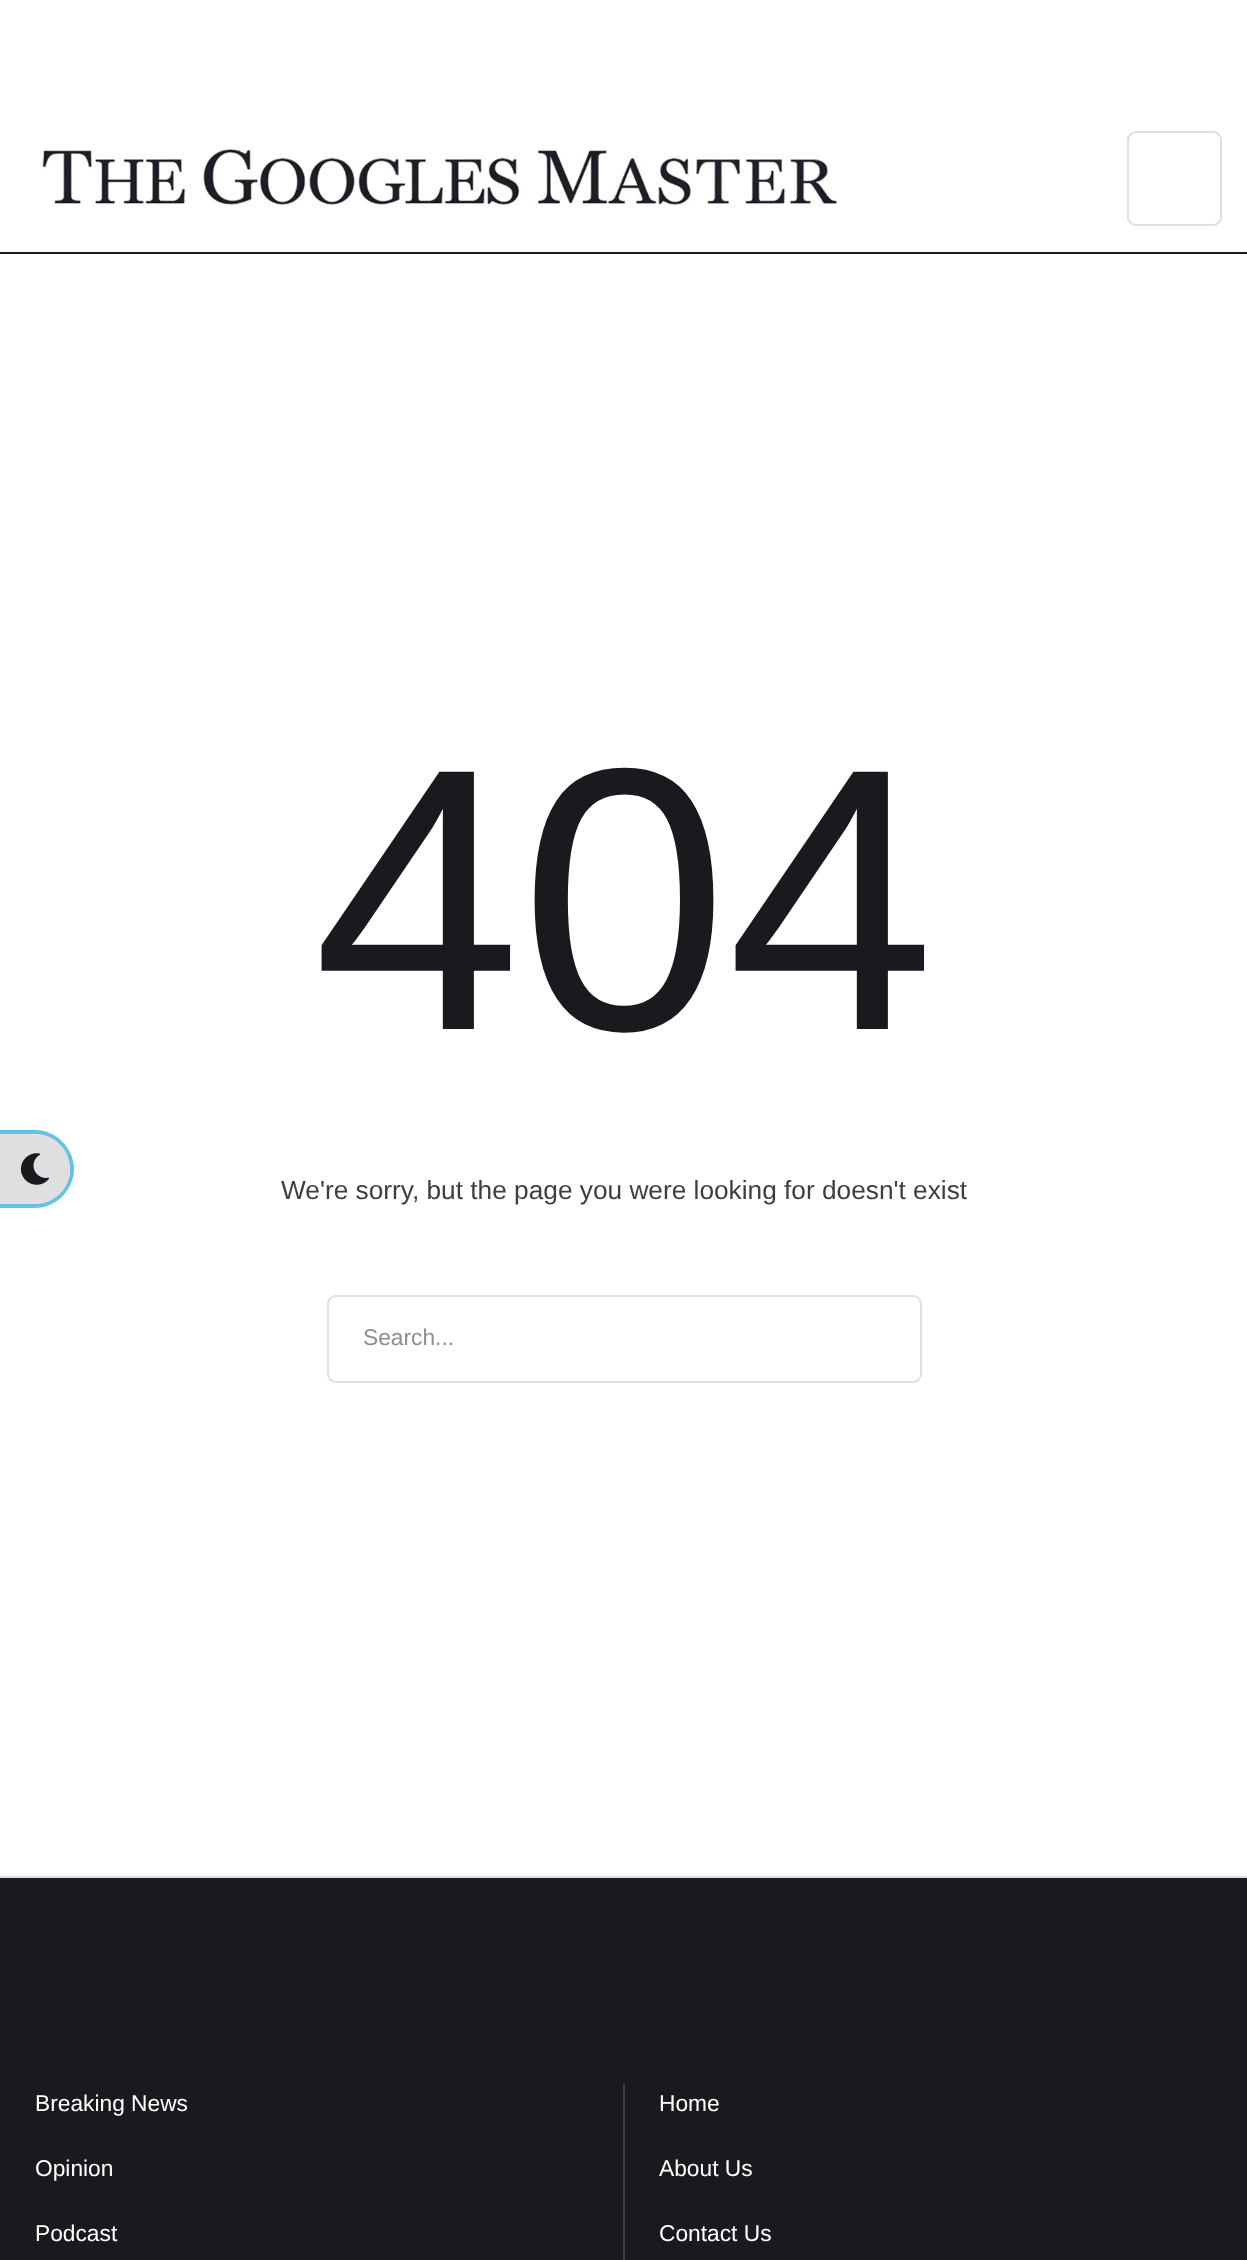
(async () => {
  const canvas = document.querySelector("canvas");
  canvas.width = 1247;
  canvas.height = 2260;
  const ctx = canvas.getContext("2d");
  ctx.miterLimit = 4;
  ctx.fontKerning = "normal";
  async function loadImage(src) {
    const img = new Image();
    img.src = src;
    await img.decode();
    return img;
  }
  let path;

  ctx.fillStyle = "#ffffff";
  ctx.fillRect(0, 0, 1247, 2260);
  ctx.fillStyle = "#191a1e";
  ctx.fillRect(0, 252, 1247, 2);
  ctx.drawImage(await loadImage("img/1.png"), 42, 149, 795, 57);
  ctx.beginPath();
  ctx.roundRect(1128, 132, 93, 93, 8);
  ctx.strokeStyle = "#dfdfdf";
  ctx.lineWidth = 2;
  ctx.stroke();
  ctx.fillStyle = "#67c1e2";
  path = new Path2D("M0 1130H35C56 1130 74 1148 74 1169C74 1190 56 1208 35 1208H0ZM0 1134H35C54 1134 70 1150 70 1169C70 1188 54 1204 35 1204H0Z");
  ctx.fill(path, "evenodd");
  ctx.fillStyle = "#dfdfdf";
  ctx.beginPath();
  ctx.roundRect(0, 1134, 70, 70, [0, 35, 35, 0]);
  ctx.fill();
  ctx.drawImage(await loadImage("img/2.png"), 20, 1153, 29, 32);
  ctx.beginPath();
  ctx.roundRect(328, 1296, 593, 86, 8);
  ctx.stroke();
  for (const [x, y, w, h, color] of [
    [0, 1878, 1247, 382, "#191a1e"],
    [0, 1876, 1247, 2, "#dfdfdf"],
    [623, 2084, 2, 176, "#3d3d41"],
  ]) {
    ctx.fillStyle = color;
    ctx.fillRect(x, y, w, h);
  }
  ctx.letterSpacing = "-1px";
  ctx.font = "374px Liberation Sans";
  ctx.fillStyle = "#191a1e";
  ctx.fillText("404", 313, 1029);
  ctx.letterSpacing = "0px";
  ctx.font = "26.25px Liberation Sans";
  ctx.fillStyle = "#3e3e3e";
  ctx.fillText("We're sorry, but the page you were looking for doesn't exist", 281, 1199);
  ctx.font = "22.75px Liberation Sans";
  ctx.fillStyle = "#8e8e8e";
  ctx.fillText("Search...", 363, 1345);
  ctx.fillStyle = "#ffffff";
  for (const [text, x, y] of [
    ["Breaking News", 35, 2111],
    ["Opinion", 35, 2176],
    ["Podcast", 35, 2241],
    ["Home", 659, 2111],
    ["About Us", 659, 2176],
    ["Contact Us", 659, 2241],
  ]) {
    ctx.fillText(text, x, y);
  }
})();
